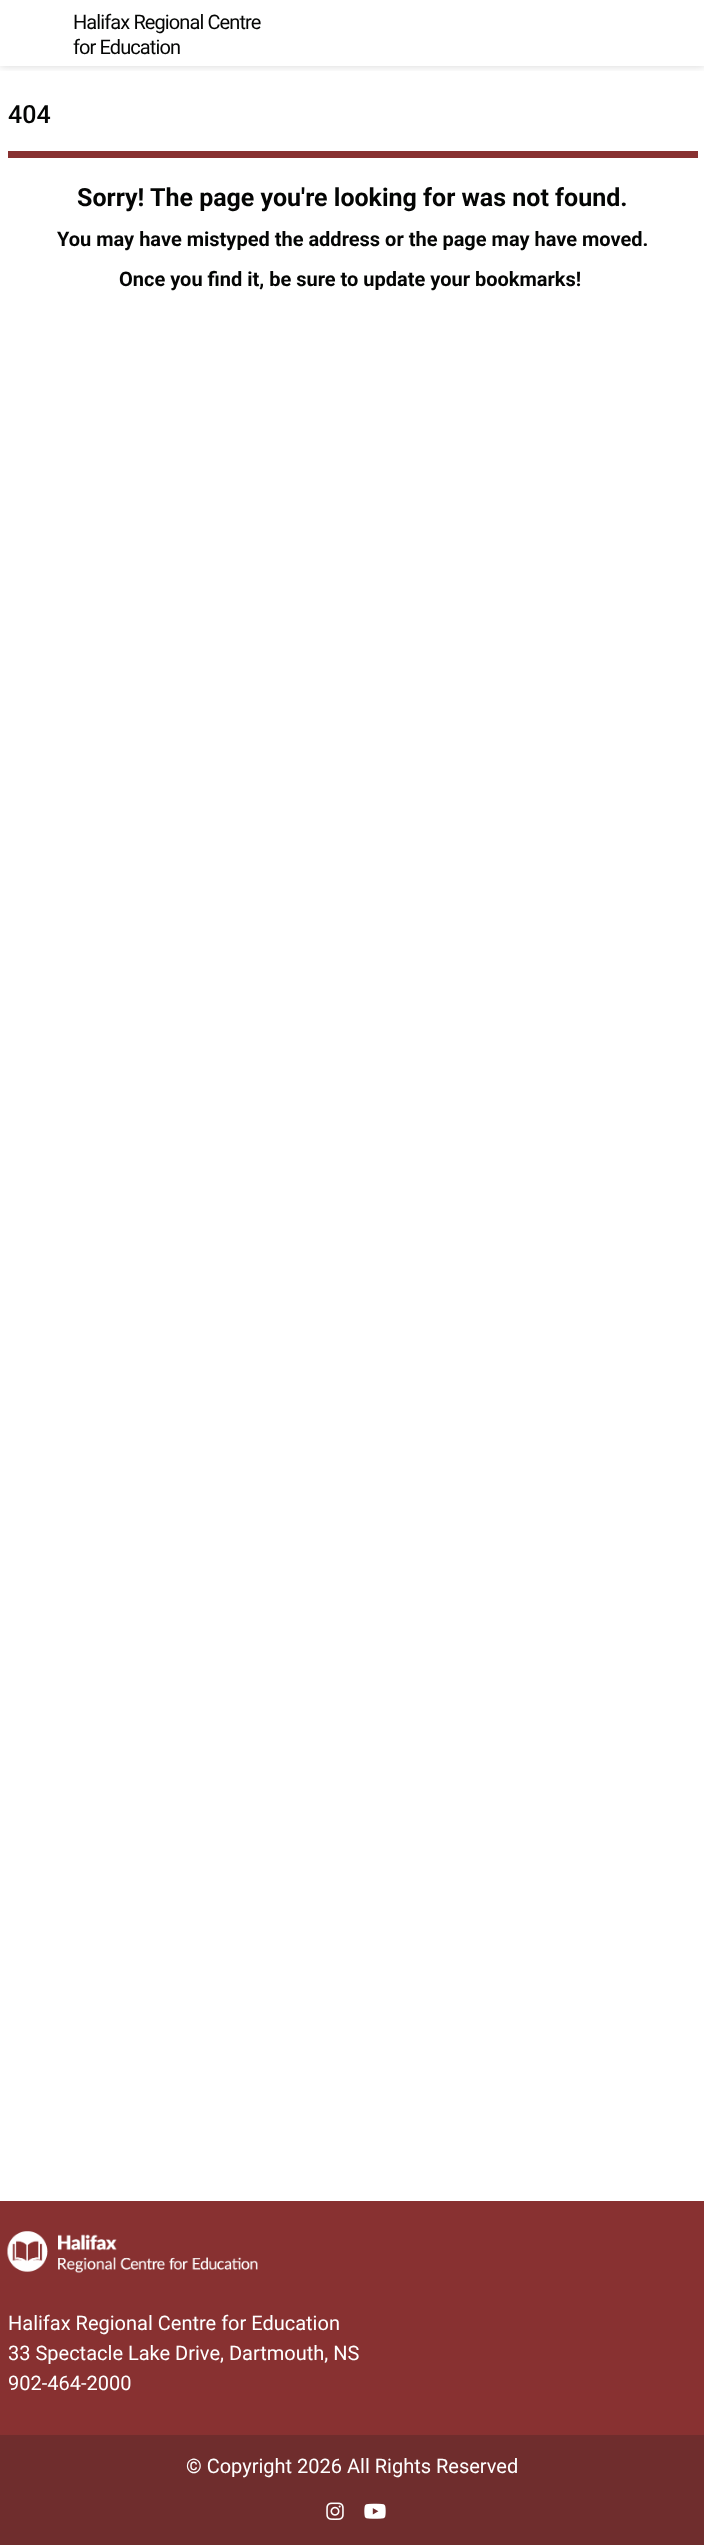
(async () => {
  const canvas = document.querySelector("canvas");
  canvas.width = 704;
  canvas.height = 2545;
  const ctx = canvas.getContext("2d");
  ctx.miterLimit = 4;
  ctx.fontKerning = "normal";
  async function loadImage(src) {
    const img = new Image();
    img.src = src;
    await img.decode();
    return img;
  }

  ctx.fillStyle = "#ffffff";
  ctx.fillRect(0, 0, 704, 2545);
  ctx.save();
  ctx.beginPath();
  ctx.rect(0, 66, 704, 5);
  ctx.clip();
  ctx.fillStyle = "rgba(0, 0, 0, 0.16)";
  ctx.filter = "blur(4px)";
  ctx.beginPath();
  ctx.rect(0, 0, 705, 66);
  ctx.fill();
  ctx.filter = "none";
  ctx.restore();
  ctx.fillStyle = "#883131";
  ctx.fillRect(8, 151, 690, 7);
  ctx.fillRect(0, 2201, 704, 234);
  ctx.drawImage(await loadImage("img/1.png"), 7, 2231, 251, 42);
  ctx.fillStyle = "#6f2d2d";
  ctx.fillRect(0, 2435, 704, 110);
  ctx.drawImage(await loadImage("img/2.png"), 326, 2502, 18, 18);
  ctx.drawImage(await loadImage("img/3.png"), 364, 2503, 22, 16);
  ctx.letterSpacing = "-0.9px";
  ctx.font = "20px Roboto";
  ctx.fillStyle = "#040504";
  ctx.fillText("Halifax Regional Centre", 73, 29);
  ctx.fillText("for Education", 73, 54);
  ctx.letterSpacing = "0px";
  ctx.font = "500 25px Roboto";
  ctx.fillText("404", 8, 123);
  ctx.font = "bold 25px Roboto";
  ctx.fillText("Sorry! The page you're looking for was not found.", 77, 206);
  ctx.font = "bold 20px Roboto";
  ctx.fillText("You may have mistyped the address or the page may have moved.", 57, 246);
  ctx.fillText("Once you find it, be sure to update your bookmarks!", 119, 286);
  ctx.font = "20px Roboto";
  ctx.fillStyle = "#ffffff";
  for (const [text, x, y] of [
    ["Halifax Regional Centre for Education", 8, 2330],
    ["33 Spectacle Lake Drive, Dartmouth, NS", 8, 2360],
    ["902-464-2000", 8, 2390],
    ["© Copyright 2026 All Rights Reserved", 186, 2473],
  ]) {
    ctx.fillText(text, x, y);
  }
})();
